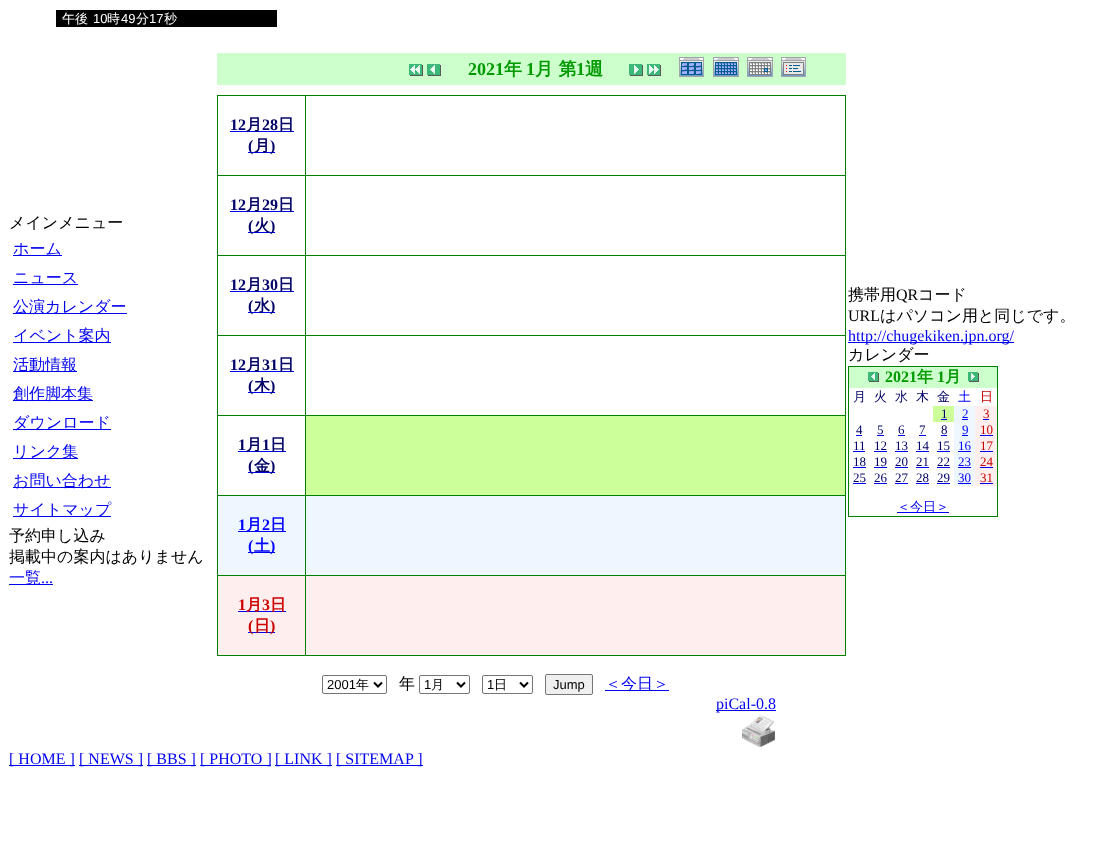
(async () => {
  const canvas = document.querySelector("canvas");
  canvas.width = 1099;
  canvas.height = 866;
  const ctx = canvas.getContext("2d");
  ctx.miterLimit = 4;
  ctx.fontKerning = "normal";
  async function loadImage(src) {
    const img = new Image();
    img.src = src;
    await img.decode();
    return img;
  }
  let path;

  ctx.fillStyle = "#ffffff";
  ctx.fillRect(0, 0, 1099, 866);
  for (const [x, y, w, h, color] of [
    [56, 10, 221, 17, "#000000"],
    [13, 255, 49, 1, "#0000ee"],
    [13, 284, 65, 1, "#0000ee"],
    [13, 313, 114, 1, "#0000ee"],
    [13, 342, 98, 1, "#0000ee"],
    [13, 371, 64, 1, "#0000ee"],
    [13, 400, 80, 1, "#0000ee"],
    [13, 429, 98, 1, "#0000ee"],
    [13, 458, 65, 1, "#0000ee"],
    [13, 487, 98, 1, "#0000ee"],
    [13, 516, 98, 1, "#0000ee"],
    [9, 584, 44, 1, "#0000ee"],
    [217, 53, 629, 32, "#ccffcc"],
  ]) {
    ctx.fillStyle = color;
    ctx.fillRect(x, y, w, h);
  }
  ctx.drawImage(await loadImage("img/1.png"), 409, 64, 14, 12);
  ctx.drawImage(await loadImage("img/2.png"), 427, 64, 14, 12);
  ctx.drawImage(await loadImage("img/3.png"), 629, 64, 14, 12);
  ctx.drawImage(await loadImage("img/4.png"), 647, 64, 14, 12);
  ctx.drawImage(await loadImage("img/5.png"), 679, 57, 25, 20);
  ctx.drawImage(await loadImage("img/6.png"), 713, 57, 26, 20);
  ctx.drawImage(await loadImage("img/7.png"), 747, 57, 26, 20);
  ctx.drawImage(await loadImage("img/8.png"), 781, 57, 25, 20);
  for (const [x, y, w, h, color] of [
    [305, 95, 541, 1, "#008000"],
    [305, 175, 541, 1, "#008000"],
    [305, 255, 541, 1, "#008000"],
    [305, 335, 541, 1, "#008000"],
    [305, 415, 541, 1, "#008000"],
    [305, 495, 541, 1, "#008000"],
    [305, 575, 541, 1, "#008000"],
    [845, 575, 1, 81, "#008000"],
    [305, 655, 541, 1, "#008000"],
    [305, 575, 1, 81, "#008000"],
    [217, 575, 89, 1, "#008000"],
    [305, 495, 1, 81, "#008000"],
    [217, 495, 89, 1, "#008000"],
    [305, 415, 1, 81, "#008000"],
    [217, 415, 89, 1, "#008000"],
    [305, 335, 1, 81, "#008000"],
    [217, 335, 89, 1, "#008000"],
    [305, 255, 1, 81, "#008000"],
    [217, 255, 89, 1, "#008000"],
    [305, 175, 1, 81, "#008000"],
    [217, 175, 89, 1, "#008000"],
    [305, 95, 1, 81, "#008000"],
    [217, 95, 89, 1, "#008000"],
    [217, 655, 89, 1, "#008000"],
    [217, 575, 1, 81, "#008000"],
    [217, 495, 1, 81, "#008000"],
    [217, 415, 1, 81, "#008000"],
    [217, 335, 1, 81, "#008000"],
    [217, 255, 1, 81, "#008000"],
    [217, 175, 1, 81, "#008000"],
    [217, 95, 1, 81, "#008000"],
    [230, 131, 64, 1, "#0000ee"],
    [248, 152, 27, 1, "#0000ee"],
    [845, 495, 1, 81, "#008000"],
    [845, 415, 1, 81, "#008000"],
    [845, 335, 1, 81, "#008000"],
    [845, 255, 1, 81, "#008000"],
    [845, 175, 1, 81, "#008000"],
    [845, 95, 1, 81, "#008000"],
    [230, 211, 64, 1, "#0000ee"],
    [248, 232, 27, 1, "#0000ee"],
    [230, 291, 64, 1, "#0000ee"],
    [248, 312, 27, 1, "#0000ee"],
    [230, 371, 64, 1, "#0000ee"],
    [248, 392, 27, 1, "#0000ee"],
    [238, 451, 48, 1, "#0000ee"],
    [248, 472, 27, 1, "#0000ee"],
    [306, 416, 539, 79, "#ccff99"],
    [218, 496, 87, 79, "#eef7ff"],
    [238, 531, 48, 1, "#0000ee"],
    [248, 552, 27, 1, "#0000ee"],
    [306, 496, 539, 79, "#eef7ff"],
    [218, 576, 87, 79, "#ffeeee"],
    [238, 611, 48, 1, "#0000ee"],
    [248, 632, 27, 1, "#0000ee"],
    [306, 576, 539, 79, "#ffeeee"],
  ]) {
    ctx.fillStyle = color;
    ctx.fillRect(x, y, w, h);
  }
  ctx.beginPath();
  ctx.roundRect(322.5, 675.5, 64, 18, 1.5);
  ctx.strokeStyle = "#767676";
  ctx.stroke();
  path = new Path2D("M374 682.5L378 686.5L382 682.5");
  ctx.strokeStyle = "#000000";
  ctx.lineWidth = 2;
  ctx.stroke(path);
  ctx.beginPath();
  ctx.roundRect(419.5, 675.5, 50, 18, 1.5);
  ctx.strokeStyle = "#767676";
  ctx.lineWidth = 1;
  ctx.stroke();
  path = new Path2D("M457 682.5L461 686.5L465 682.5");
  ctx.strokeStyle = "#000000";
  ctx.lineWidth = 2;
  ctx.stroke(path);
  ctx.beginPath();
  ctx.roundRect(482.5, 675.5, 50, 18, 1.5);
  ctx.strokeStyle = "#767676";
  ctx.lineWidth = 1;
  ctx.stroke();
  path = new Path2D("M520 682.5L524 686.5L528 682.5");
  ctx.strokeStyle = "#000000";
  ctx.lineWidth = 2;
  ctx.stroke(path);
  ctx.fillStyle = "#efefef";
  ctx.beginPath();
  ctx.roundRect(545.5, 674.5, 47, 20, 1.5);
  ctx.fill();
  ctx.strokeStyle = "#767676";
  ctx.lineWidth = 1;
  ctx.stroke();
  ctx.fillStyle = "#0000ee";
  ctx.fillRect(605, 690, 64, 1);
  ctx.fillRect(716, 710, 60, 1);
  ctx.drawImage(await loadImage("img/9.png"), 742, 715, 33, 32);
  ctx.fillRect(848, 342, 166, 1);
  ctx.strokeStyle = "#008000";
  ctx.strokeRect(848.5, 366.5, 149, 150);
  ctx.fillStyle = "#ccffcc";
  ctx.fillRect(849, 367, 148, 21);
  ctx.drawImage(await loadImage("img/10.png"), 868, 372, 11, 10);
  ctx.drawImage(await loadImage("img/11.png"), 968, 372, 11, 10);
  for (const [x, y, w, h, color] of [
    [933, 406, 21, 16, "#ccff99"],
    [941, 419, 6, 1, "#0000ee"],
    [954, 406, 21, 80, "#eef7ff"],
    [962, 419, 6, 1, "#0000ee"],
    [975, 406, 22, 80, "#ffeeee"],
    [983, 419, 6, 1, "#0000ee"],
    [856, 435, 6, 1, "#0000ee"],
    [877, 435, 7, 1, "#0000ee"],
    [898, 435, 7, 1, "#0000ee"],
    [919, 435, 7, 1, "#0000ee"],
    [941, 435, 6, 1, "#0000ee"],
    [962, 435, 6, 1, "#0000ee"],
    [980, 435, 13, 1, "#0000ee"],
    [853, 451, 12, 1, "#0000ee"],
    [874, 451, 13, 1, "#0000ee"],
    [895, 451, 13, 1, "#0000ee"],
    [916, 451, 13, 1, "#0000ee"],
    [937, 451, 13, 1, "#0000ee"],
    [958, 451, 13, 1, "#0000ee"],
    [980, 451, 13, 1, "#0000ee"],
    [853, 467, 13, 1, "#0000ee"],
    [874, 467, 13, 1, "#0000ee"],
    [895, 467, 13, 1, "#0000ee"],
    [916, 467, 13, 1, "#0000ee"],
    [937, 467, 13, 1, "#0000ee"],
    [958, 467, 13, 1, "#0000ee"],
    [980, 467, 13, 1, "#0000ee"],
    [853, 483, 13, 1, "#0000ee"],
    [874, 483, 13, 1, "#0000ee"],
    [895, 483, 13, 1, "#0000ee"],
    [916, 483, 13, 1, "#0000ee"],
    [937, 483, 13, 1, "#0000ee"],
    [958, 483, 13, 1, "#0000ee"],
    [980, 483, 13, 1, "#0000ee"],
    [897, 512, 52, 1, "#0000ee"],
    [9, 765, 66, 1, "#0000ee"],
    [79, 765, 64, 1, "#0000ee"],
    [147, 765, 49, 1, "#0000ee"],
    [200, 765, 71, 1, "#0000ee"],
    [275, 765, 57, 1, "#0000ee"],
    [336, 765, 87, 1, "#0000ee"],
  ]) {
    ctx.fillStyle = color;
    ctx.fillRect(x, y, w, h);
  }
  ctx.font = "500 13px WenQuanYi Zen Hei";
  ctx.fillStyle = "#ffffff";
  ctx.fillText("午後", 62, 23);
  ctx.font = "13px Liberation Sans";
  ctx.fillText("10", 93, 23);
  ctx.font = "500 13px WenQuanYi Zen Hei";
  ctx.fillText("時", 107, 23);
  ctx.font = "13px Liberation Sans";
  ctx.fillText("49", 121, 23);
  ctx.font = "500 13px WenQuanYi Zen Hei";
  ctx.fillText("分", 136, 23);
  ctx.font = "13px Liberation Sans";
  ctx.fillText("17", 149, 23);
  ctx.font = "500 13px WenQuanYi Zen Hei";
  ctx.fillText("秒", 164, 23);
  ctx.font = "500 16px WenQuanYi Zen Hei";
  ctx.fillStyle = "#000000";
  ctx.fillText("メインメニュー", 9, 228);
  ctx.fillStyle = "#0000ee";
  for (const [text, x, y] of [
    ["ホーム", 13, 254],
    ["ニュース", 13, 283],
    ["公演カレンダー", 13, 312],
    ["イベント案内", 13, 341],
    ["活動情報", 13, 370],
    ["創作脚本集", 13, 399],
    ["ダウンロード", 13, 428],
    ["リンク集", 13, 457],
    ["お問い合わせ", 13, 486],
    ["サイトマップ", 13, 515],
  ]) {
    ctx.fillText(text, x, y);
  }
  ctx.fillStyle = "#000000";
  ctx.fillText("予約申し込み", 9, 541);
  ctx.fillText("掲載中の案内はありません", 9, 562);
  ctx.fillStyle = "#0000ee";
  ctx.fillText("一覧", 9, 583);
  ctx.font = "16px Liberation Serif";
  ctx.fillText("...", 41, 583);
  ctx.font = "bold 18px Liberation Serif";
  ctx.fillStyle = "#009900";
  ctx.fillText("2021", 468, 75);
  ctx.font = "bold 18px WenQuanYi Zen Hei";
  ctx.fillText("年", 504, 75);
  ctx.font = "bold 18px Liberation Serif";
  ctx.fillText("1", 526, 75);
  ctx.font = "bold 18px WenQuanYi Zen Hei";
  ctx.fillText("月 第", 535, 75);
  ctx.font = "bold 18px Liberation Serif";
  ctx.fillText("1", 576, 75);
  ctx.font = "bold 18px WenQuanYi Zen Hei";
  ctx.fillText("週", 585, 75);
  ctx.font = "bold 16px Liberation Serif";
  ctx.fillStyle = "#000066";
  ctx.fillText("12", 230, 130);
  ctx.font = "bold 16px WenQuanYi Zen Hei";
  ctx.fillText("月", 246, 130);
  ctx.font = "bold 16px Liberation Serif";
  ctx.fillText("28", 262, 130);
  ctx.font = "bold 16px WenQuanYi Zen Hei";
  ctx.fillText("日", 278, 130);
  ctx.font = "bold 16px Liberation Serif";
  ctx.fillText("(", 248, 151);
  ctx.font = "bold 16px WenQuanYi Zen Hei";
  ctx.fillText("月", 254, 151);
  ctx.font = "bold 16px Liberation Serif";
  ctx.fillText(")", 270, 151);
  ctx.fillText("12", 230, 210);
  ctx.font = "bold 16px WenQuanYi Zen Hei";
  ctx.fillText("月", 246, 210);
  ctx.font = "bold 16px Liberation Serif";
  ctx.fillText("29", 262, 210);
  ctx.font = "bold 16px WenQuanYi Zen Hei";
  ctx.fillText("日", 278, 210);
  ctx.font = "bold 16px Liberation Serif";
  ctx.fillText("(", 248, 231);
  ctx.font = "bold 16px WenQuanYi Zen Hei";
  ctx.fillText("火", 254, 231);
  ctx.font = "bold 16px Liberation Serif";
  ctx.fillText(")", 270, 231);
  ctx.fillText("12", 230, 290);
  ctx.font = "bold 16px WenQuanYi Zen Hei";
  ctx.fillText("月", 246, 290);
  ctx.font = "bold 16px Liberation Serif";
  ctx.fillText("30", 262, 290);
  ctx.font = "bold 16px WenQuanYi Zen Hei";
  ctx.fillText("日", 278, 290);
  ctx.font = "bold 16px Liberation Serif";
  ctx.fillText("(", 248, 311);
  ctx.font = "bold 16px WenQuanYi Zen Hei";
  ctx.fillText("水", 254, 311);
  ctx.font = "bold 16px Liberation Serif";
  ctx.fillText(")", 270, 311);
  ctx.fillText("12", 230, 370);
  ctx.font = "bold 16px WenQuanYi Zen Hei";
  ctx.fillText("月", 246, 370);
  ctx.font = "bold 16px Liberation Serif";
  ctx.fillText("31", 262, 370);
  ctx.font = "bold 16px WenQuanYi Zen Hei";
  ctx.fillText("日", 278, 370);
  ctx.font = "bold 16px Liberation Serif";
  ctx.fillText("(", 248, 391);
  ctx.font = "bold 16px WenQuanYi Zen Hei";
  ctx.fillText("木", 254, 391);
  ctx.font = "bold 16px Liberation Serif";
  ctx.fillText(")", 270, 391);
  ctx.fillText("1", 238, 450);
  ctx.font = "bold 16px WenQuanYi Zen Hei";
  ctx.fillText("月", 246, 450);
  ctx.font = "bold 16px Liberation Serif";
  ctx.fillText("1", 262, 450);
  ctx.font = "bold 16px WenQuanYi Zen Hei";
  ctx.fillText("日", 270, 450);
  ctx.font = "bold 16px Liberation Serif";
  ctx.fillText("(", 248, 471);
  ctx.font = "bold 16px WenQuanYi Zen Hei";
  ctx.fillText("金", 254, 471);
  ctx.font = "bold 16px Liberation Serif";
  ctx.fillText(")", 270, 471);
  ctx.fillStyle = "#0000ff";
  ctx.fillText("1", 238, 530);
  ctx.font = "bold 16px WenQuanYi Zen Hei";
  ctx.fillText("月", 246, 530);
  ctx.font = "bold 16px Liberation Serif";
  ctx.fillText("2", 262, 530);
  ctx.font = "bold 16px WenQuanYi Zen Hei";
  ctx.fillText("日", 270, 530);
  ctx.font = "bold 16px Liberation Serif";
  ctx.fillText("(", 248, 551);
  ctx.font = "bold 16px WenQuanYi Zen Hei";
  ctx.fillText("土", 254, 551);
  ctx.font = "bold 16px Liberation Serif";
  ctx.fillText(")", 270, 551);
  ctx.fillStyle = "#cc0000";
  ctx.fillText("1", 238, 610);
  ctx.font = "bold 16px WenQuanYi Zen Hei";
  ctx.fillText("月", 246, 610);
  ctx.font = "bold 16px Liberation Serif";
  ctx.fillText("3", 262, 610);
  ctx.font = "bold 16px WenQuanYi Zen Hei";
  ctx.fillText("日", 270, 610);
  ctx.font = "bold 16px Liberation Serif";
  ctx.fillText("(", 248, 631);
  ctx.font = "bold 16px WenQuanYi Zen Hei";
  ctx.fillText("日", 254, 631);
  ctx.font = "bold 16px Liberation Serif";
  ctx.fillText(")", 270, 631);
  ctx.font = "13px Liberation Sans";
  ctx.fillStyle = "#000000";
  ctx.fillText("2001", 327, 689);
  ctx.font = "500 13px WenQuanYi Zen Hei";
  ctx.fillText("年", 356, 689);
  ctx.font = "500 16px WenQuanYi Zen Hei";
  ctx.fillText("年", 399, 689);
  ctx.font = "13px Liberation Sans";
  ctx.fillText("1", 424, 689);
  ctx.font = "500 13px WenQuanYi Zen Hei";
  ctx.fillText("月", 431, 689);
  ctx.font = "13px Liberation Sans";
  ctx.fillText("1", 487, 689);
  ctx.font = "500 13px WenQuanYi Zen Hei";
  ctx.fillText("日", 494, 689);
  ctx.font = "13px Liberation Sans";
  ctx.fillText("Jump", 553, 689);
  ctx.font = "500 16px WenQuanYi Zen Hei";
  ctx.fillStyle = "#0000ee";
  ctx.fillText("＜今日＞", 605, 689);
  ctx.font = "16px Liberation Serif";
  ctx.fillText("piCal-0.8", 716, 709);
  ctx.font = "500 16px WenQuanYi Zen Hei";
  ctx.fillStyle = "#000000";
  ctx.fillText("携帯用", 848, 300);
  ctx.font = "16px Liberation Serif";
  ctx.fillText("QR", 896, 300);
  ctx.font = "500 16px WenQuanYi Zen Hei";
  ctx.fillText("コード", 918, 300);
  ctx.font = "16px Liberation Serif";
  ctx.fillText("URL", 848, 321);
  ctx.font = "500 16px WenQuanYi Zen Hei";
  ctx.fillText("はパソコン用と同じです。", 880, 321);
  ctx.font = "16px Liberation Serif";
  ctx.fillStyle = "#0000ee";
  ctx.fillText("http://chugekiken.jpn.org/", 848, 341);
  ctx.font = "500 16px WenQuanYi Zen Hei";
  ctx.fillStyle = "#000000";
  ctx.fillText("カレンダー", 848, 360);
  ctx.font = "bold 16px Liberation Serif";
  ctx.fillStyle = "#009900";
  ctx.fillText("2021", 885, 382);
  ctx.font = "bold 16px WenQuanYi Zen Hei";
  ctx.fillText("年", 917, 382);
  ctx.font = "bold 16px Liberation Serif";
  ctx.fillText("1", 937, 382);
  ctx.font = "bold 16px WenQuanYi Zen Hei";
  ctx.fillText("月", 945, 382);
  ctx.font = "500 13px WenQuanYi Zen Hei";
  ctx.fillStyle = "#000066";
  for (const [text, x, y] of [
    ["月", 853, 401],
    ["火", 874, 401],
    ["水", 895, 401],
    ["木", 916, 401],
    ["金", 937, 401],
  ]) {
    ctx.fillText(text, x, y);
  }
  ctx.fillStyle = "#0000ff";
  ctx.fillText("土", 958, 401);
  ctx.fillStyle = "#cc0000";
  ctx.fillText("日", 980, 401);
  ctx.font = "13px Liberation Serif";
  ctx.fillStyle = "#000066";
  ctx.fillText("1", 941, 418);
  ctx.fillStyle = "#0000ff";
  ctx.fillText("2", 962, 418);
  ctx.fillStyle = "#cc0000";
  ctx.fillText("3", 983, 418);
  ctx.fillStyle = "#000066";
  for (const [text, x, y] of [
    ["4", 856, 434],
    ["5", 877, 434],
    ["6", 898, 434],
    ["7", 919, 434],
    ["8", 941, 434],
  ]) {
    ctx.fillText(text, x, y);
  }
  ctx.fillStyle = "#0000ff";
  ctx.fillText("9", 962, 434);
  ctx.fillStyle = "#cc0000";
  ctx.fillText("10", 980, 434);
  ctx.fillStyle = "#000066";
  for (const [text, x, y] of [
    ["11", 853, 450],
    ["12", 874, 450],
    ["13", 895, 450],
    ["14", 916, 450],
    ["15", 937, 450],
  ]) {
    ctx.fillText(text, x, y);
  }
  ctx.fillStyle = "#0000ff";
  ctx.fillText("16", 958, 450);
  ctx.fillStyle = "#cc0000";
  ctx.fillText("17", 980, 450);
  ctx.fillStyle = "#000066";
  for (const [text, x, y] of [
    ["18", 853, 466],
    ["19", 874, 466],
    ["20", 895, 466],
    ["21", 916, 466],
    ["22", 937, 466],
  ]) {
    ctx.fillText(text, x, y);
  }
  ctx.fillStyle = "#0000ff";
  ctx.fillText("23", 958, 466);
  ctx.fillStyle = "#cc0000";
  ctx.fillText("24", 980, 466);
  ctx.fillStyle = "#000066";
  for (const [text, x, y] of [
    ["25", 853, 482],
    ["26", 874, 482],
    ["27", 895, 482],
    ["28", 916, 482],
    ["29", 937, 482],
  ]) {
    ctx.fillText(text, x, y);
  }
  ctx.fillStyle = "#0000ff";
  ctx.fillText("30", 958, 482);
  ctx.fillStyle = "#cc0000";
  ctx.fillText("31", 980, 482);
  ctx.font = "500 13px WenQuanYi Zen Hei";
  ctx.fillStyle = "#0000ee";
  ctx.fillText("＜今日＞", 897, 511);
  ctx.font = "16px Liberation Serif";
  for (const [text, x, y] of [
    ["[ HOME ]", 9, 764],
    ["[ NEWS ]", 79, 764],
    ["[ BBS ]", 147, 764],
    ["[ PHOTO ]", 200, 764],
    ["[ LINK ]", 275, 764],
    ["[ SITEMAP ]", 336, 764],
  ]) {
    ctx.fillText(text, x, y);
  }
})();
